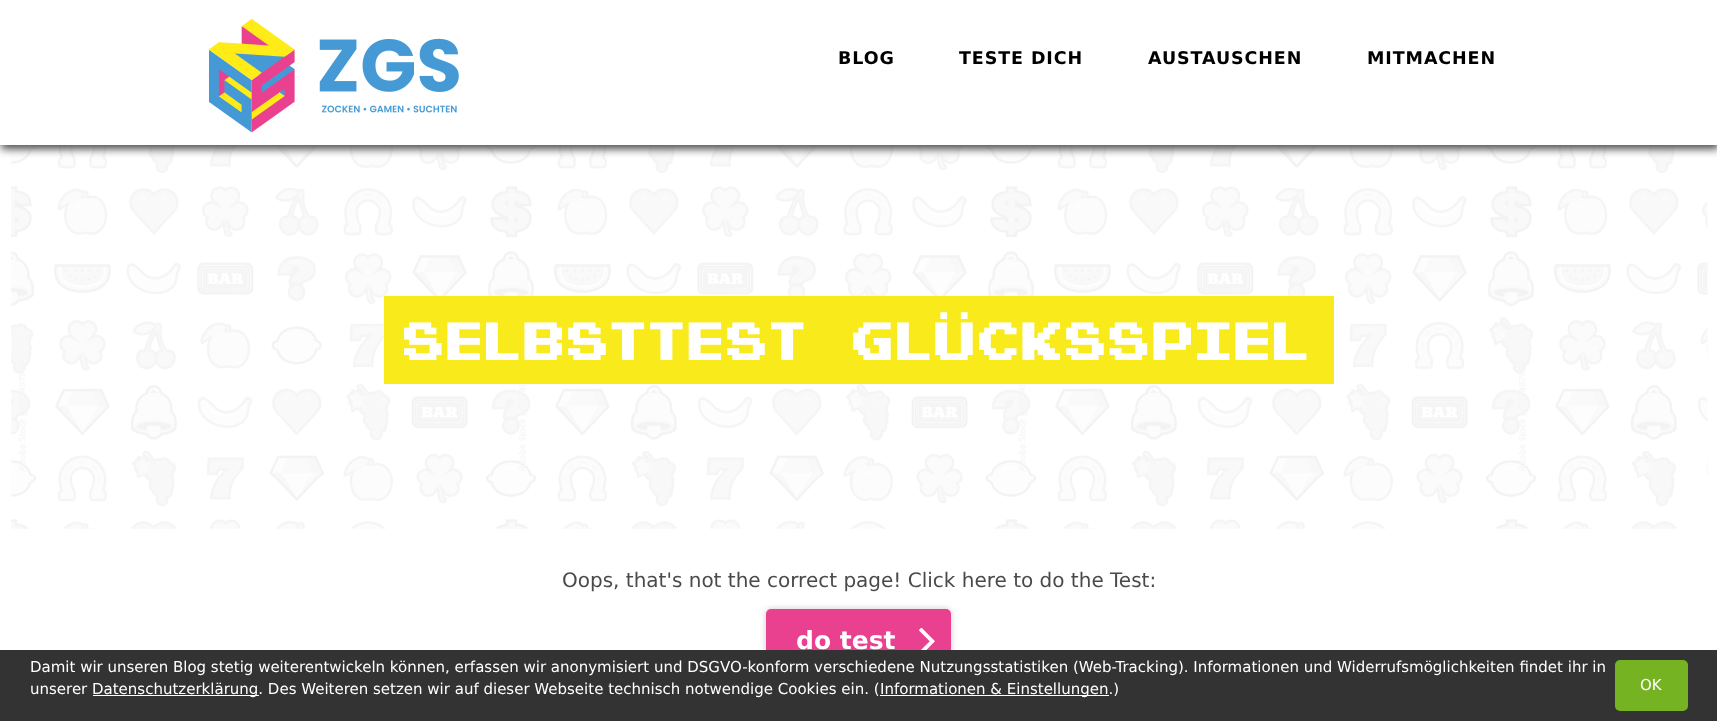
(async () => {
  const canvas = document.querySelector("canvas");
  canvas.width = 1717;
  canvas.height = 721;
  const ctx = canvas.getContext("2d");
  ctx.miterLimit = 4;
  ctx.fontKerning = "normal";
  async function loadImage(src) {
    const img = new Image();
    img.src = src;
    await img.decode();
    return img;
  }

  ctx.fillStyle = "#ffffff";
  ctx.fillRect(0, 0, 1717, 721);
  ctx.drawImage(await loadImage("img/2.png"), 11, 145, 1697, 384);
  ctx.save();
  ctx.beginPath();
  ctx.rect(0, 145, 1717, 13);
  ctx.clip();
  ctx.fillStyle = "#4a4a4a";
  ctx.filter = "blur(4.5px)";
  ctx.beginPath();
  ctx.rect(1, 4, 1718, 145);
  ctx.fill();
  ctx.filter = "none";
  ctx.restore();
  ctx.drawImage(await loadImage("img/1.png"), 209, 19, 250, 114);
  ctx.fillStyle = "#f9eb1b";
  ctx.fillRect(384, 296, 950, 88);
  ctx.fillStyle = "#cacaca";
  ctx.filter = "blur(3px)";
  ctx.beginPath();
  ctx.roundRect(766, 609, 185, 62, 5);
  ctx.fill();
  ctx.filter = "none";
  ctx.fillStyle = "#e9408f";
  ctx.beginPath();
  ctx.roundRect(766, 609, 185, 62, 5);
  ctx.fill();
  ctx.drawImage(await loadImage("img/3.png"), 919, 628, 16, 22);
  for (const [x, y, w, h, color] of [
    [0, 650, 1717, 71, "#333333"],
    [93, 695, 166, 1, "#ffffff"],
    [880, 695, 229, 1, "#ffffff"],
  ]) {
    ctx.fillStyle = color;
    ctx.fillRect(x, y, w, h);
  }
  ctx.fillStyle = "#75b322";
  ctx.beginPath();
  ctx.roundRect(1615, 660, 73, 51, 5);
  ctx.fill();
  ctx.letterSpacing = "0.9px";
  ctx.font = "bold 17.5px DejaVu Sans";
  ctx.fillStyle = "#000000";
  for (const [text, x, y] of [
    ["BLOG", 838, 64],
    ["TESTE DICH", 959, 64],
    ["AUSTAUSCHEN", 1148, 64],
    ["MITMACHEN", 1367, 64],
  ]) {
    ctx.fillText(text, x, y);
  }
  ctx.letterSpacing = "2.6px";
  ctx.font = "bold 52.5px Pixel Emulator";
  ctx.fillStyle = "#ffffff";
  ctx.fillText("SELBSTTEST GLÜCKSSPIEL", 404, 360);
  ctx.letterSpacing = "0px";
  ctx.font = "20px DejaVu Sans";
  ctx.fillStyle = "#4a4a4a";
  ctx.fillText("Oops, that's not the correct page! Click here to do the Test:", 562, 587);
  ctx.font = "bold 25px DejaVu Sans";
  ctx.fillStyle = "#ffffff";
  ctx.fillText("do test", 796, 649);
  ctx.font = "15px DejaVu Sans";
  for (const [text, x, y] of [
    ["Damit wir unseren Blog stetig weiterentwickeln können, erfassen wir anonymisiert und DSGVO-konform verschiedene Nutzungsstatistiken (Web-Tracking). Informationen und Widerrufsmöglichkeiten findet ihr in", 30, 672],
    ["unserer", 30, 694],
    ["Datenschutzerklärung. Des Weiteren setzen wir auf dieser Webseite technisch notwendige Cookies ein. (", 92, 694],
    ["Informationen & Einstellungen.)", 880, 694],
    ["OK", 1640, 690],
  ]) {
    ctx.fillText(text, x, y);
  }
})();
